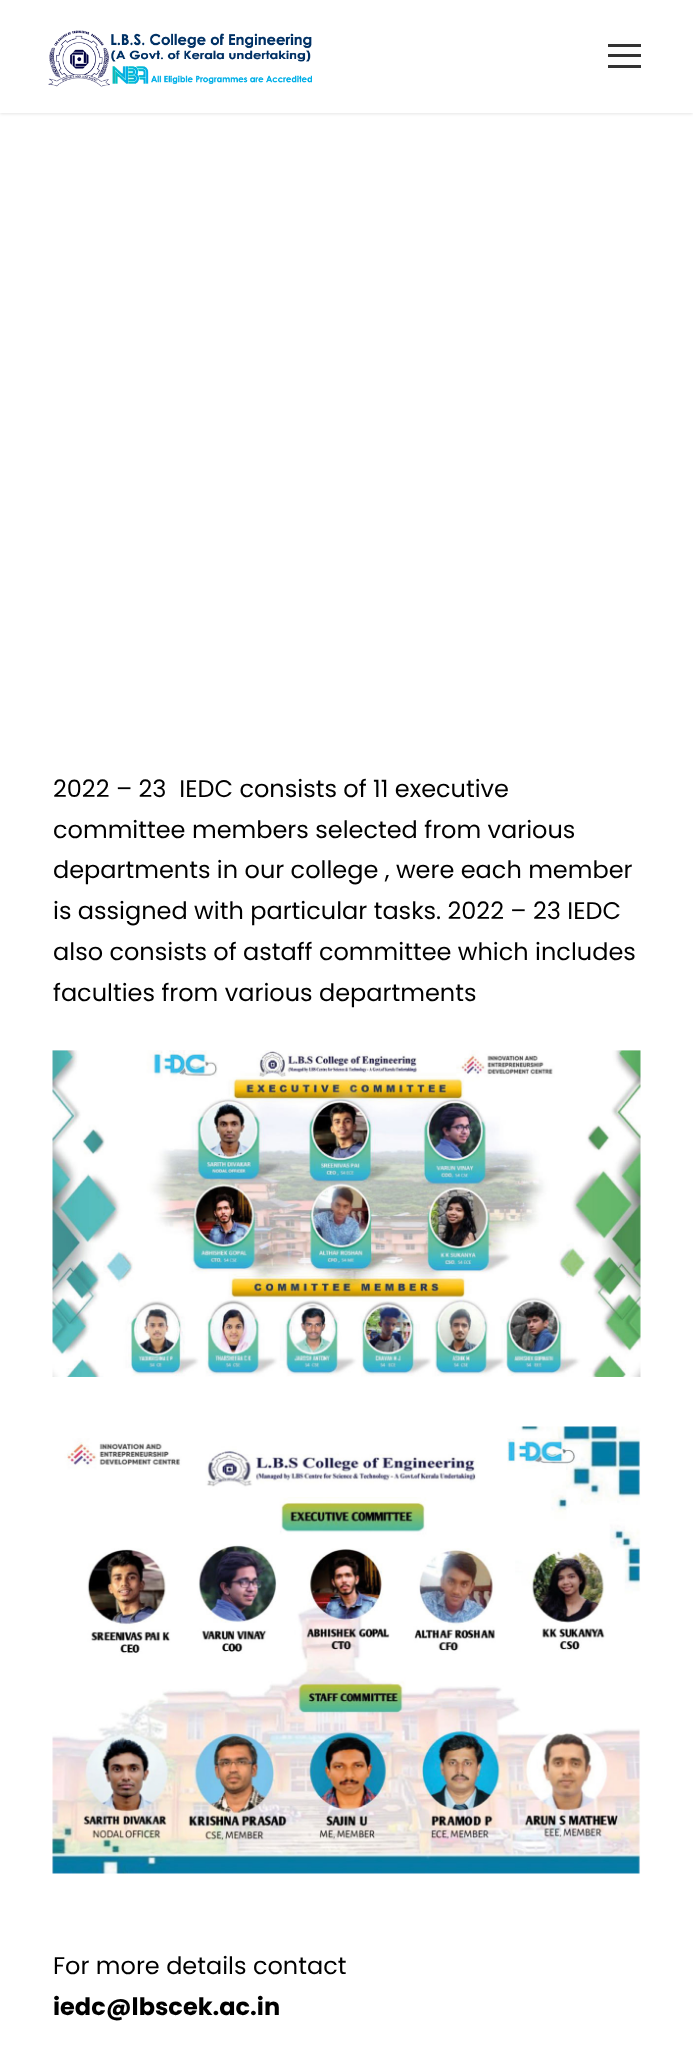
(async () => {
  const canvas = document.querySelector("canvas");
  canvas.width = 693;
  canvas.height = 2057;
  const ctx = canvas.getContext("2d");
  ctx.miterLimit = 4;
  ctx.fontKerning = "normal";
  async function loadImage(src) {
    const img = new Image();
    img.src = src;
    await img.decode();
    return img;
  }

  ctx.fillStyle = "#ffffff";
  ctx.fillRect(0, 0, 693, 2057);
  ctx.fillStyle = "rgba(0, 0, 0, 0.1)";
  ctx.filter = "blur(1.5px)";
  ctx.beginPath();
  ctx.rect(0, 2, 693, 112);
  ctx.fill();
  ctx.filter = "none";
  ctx.fillStyle = "#ffffff";
  ctx.fillRect(0, 0, 693, 113);
  ctx.drawImage(await loadImage("img/1.png"), 48, 30, 264, 57);
  for (const [x, y, w, h, color] of [
    [608, 44, 33, 3, "#333333"],
    [608, 54, 33, 3, "#333333"],
    [608, 65, 33, 3, "#333333"],
  ]) {
    ctx.fillStyle = color;
    ctx.fillRect(x, y, w, h);
  }
  ctx.drawImage(await loadImage("img/2.png"), 52, 1050, 589, 327);
  ctx.drawImage(await loadImage("img/3.png"), 52, 1426, 589, 448);
  ctx.font = "24px Poppins";
  ctx.fillStyle = "#000000";
  for (const [text, x, y] of [
    ["2022 – 23  IEDC consists of 11 executive", 53, 797],
    ["committee members selected from various", 53, 838],
    ["departments in our college , were each member", 53, 878],
    ["is assigned with particular tasks. 2022 – 23 IEDC", 53, 919],
    ["also consists of astaff committee which includes", 53, 960],
    ["faculties from various departments", 53, 1001],
    ["For more details contact", 53, 1974],
  ]) {
    ctx.fillText(text, x, y);
  }
  ctx.font = "bold 24px Poppins";
  ctx.fillText("iedc@lbscek.ac.in", 53, 2015);
})();
